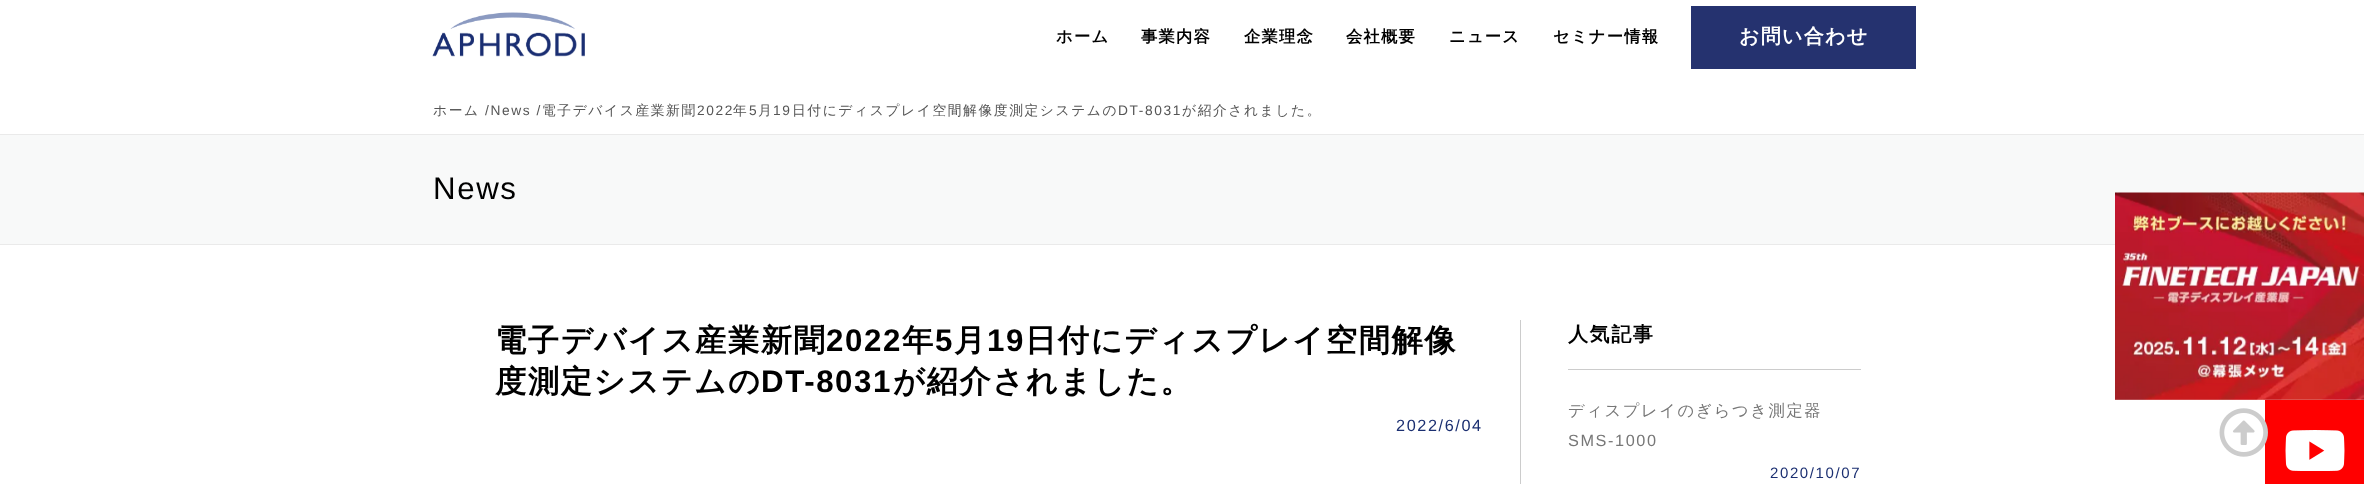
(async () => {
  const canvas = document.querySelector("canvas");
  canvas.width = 2364;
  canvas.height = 484;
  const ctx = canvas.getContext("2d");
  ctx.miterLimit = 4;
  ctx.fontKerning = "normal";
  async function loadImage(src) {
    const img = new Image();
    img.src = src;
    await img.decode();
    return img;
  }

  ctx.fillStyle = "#ffffff";
  ctx.fillRect(0, 0, 2364, 484);
  ctx.drawImage(await loadImage("img/1.png"), 432, 12, 153, 45);
  for (const [x, y, w, h, color] of [
    [1691, 6, 225, 63, "#25326f"],
    [0, 135, 2364, 109, "#f8f9f9"],
    [0, 134, 2364, 1, "#eaeaea"],
    [0, 244, 2115, 1, "#eaeaea"],
    [1520, 320, 1, 164, "#cccccc"],
    [1568, 369, 293, 1, "#cccccc"],
    [2265, 400, 99, 84, "#ff0000"],
  ]) {
    ctx.fillStyle = color;
    ctx.fillRect(x, y, w, h);
  }
  ctx.drawImage(await loadImage("img/2.png"), 2285, 430, 60, 41);
  ctx.drawImage(await loadImage("img/3.png"), 2115, 192, 249, 208);
  ctx.drawImage(await loadImage("img/4.png"), 2219, 408, 49, 49);
  ctx.letterSpacing = "1.25px";
  ctx.font = "bold 16.25px WenQuanYi Zen Hei";
  ctx.fillStyle = "#000000";
  for (const [text, x, y] of [
    ["ホーム", 1056, 42],
    ["事業内容", 1141, 42],
    ["企業理念", 1244, 42],
    ["会社概要", 1346, 42],
    ["ニュース", 1449, 42],
    ["セミナー情報", 1553, 42],
  ]) {
    ctx.fillText(text, x, y);
  }
  ctx.font = "bold 20px WenQuanYi Zen Hei";
  ctx.fillStyle = "#ffffff";
  ctx.fillText("お問い合わせ", 1739, 43);
  ctx.letterSpacing = "1.6px";
  ctx.font = "500 13.75px WenQuanYi Zen Hei";
  ctx.fillStyle = "#555555";
  ctx.fillText("ホーム", 433, 115);
  ctx.font = "13.75px Liberation Sans";
  ctx.fillText("/News /", 485, 115);
  ctx.font = "500 13.75px WenQuanYi Zen Hei";
  ctx.fillText("電子デバイス産業新聞", 542, 115);
  ctx.font = "13.75px Liberation Sans";
  ctx.fillText("2022", 697, 115);
  ctx.font = "500 13.75px WenQuanYi Zen Hei";
  ctx.fillText("年", 733, 115);
  ctx.font = "13.75px Liberation Sans";
  ctx.fillText("5", 749, 115);
  ctx.font = "500 13.75px WenQuanYi Zen Hei";
  ctx.fillText("月", 758, 115);
  ctx.font = "13.75px Liberation Sans";
  ctx.fillText("19", 773, 115);
  ctx.font = "500 13.75px WenQuanYi Zen Hei";
  ctx.fillText("日付にディスプレイ空間解像度測定システムの", 792, 115);
  ctx.font = "13.75px Liberation Sans";
  ctx.fillText("DT-8031", 1118, 115);
  ctx.font = "500 13.75px WenQuanYi Zen Hei";
  ctx.fillText("が紹介されました。", 1182, 115);
  ctx.font = "31.25px Liberation Sans";
  ctx.fillStyle = "#000000";
  ctx.fillText("News", 433, 199);
  ctx.font = "bold 31.25px WenQuanYi Zen Hei";
  ctx.fillText("電子デバイス産業新聞", 495, 351);
  ctx.font = "bold 31.25px Liberation Sans";
  ctx.fillText("2022", 826, 351);
  ctx.font = "bold 31.25px WenQuanYi Zen Hei";
  ctx.fillText("年", 902, 351);
  ctx.font = "bold 31.25px Liberation Sans";
  ctx.fillText("5", 935, 351);
  ctx.font = "bold 31.25px WenQuanYi Zen Hei";
  ctx.fillText("月", 954, 351);
  ctx.font = "bold 31.25px Liberation Sans";
  ctx.fillText("19", 987, 351);
  ctx.font = "bold 31.25px WenQuanYi Zen Hei";
  ctx.fillText("日付にディスプレイ空間解像", 1025, 351);
  ctx.fillText("度測定システムの", 495, 392);
  ctx.font = "bold 31.25px Liberation Sans";
  ctx.fillText("DT-8031", 761, 392);
  ctx.font = "bold 31.25px WenQuanYi Zen Hei";
  ctx.fillText("が紹介されました。", 893, 392);
  ctx.font = "16.25px Liberation Sans";
  ctx.fillStyle = "#1b2f71";
  ctx.fillText("2022/6/04", 1396, 431);
  ctx.font = "bold 20px WenQuanYi Zen Hei";
  ctx.fillStyle = "#000000";
  ctx.fillText("人気記事", 1568, 341);
  ctx.font = "500 16.25px WenQuanYi Zen Hei";
  ctx.fillStyle = "#777777";
  ctx.fillText("ディスプレイのぎらつき測定器", 1568, 416);
  ctx.font = "16.25px Liberation Sans";
  ctx.fillText("SMS-1000", 1568, 446);
  ctx.font = "15px Liberation Sans";
  ctx.fillStyle = "#1b2f71";
  ctx.fillText("2020/10/07", 1770, 478);
})();
